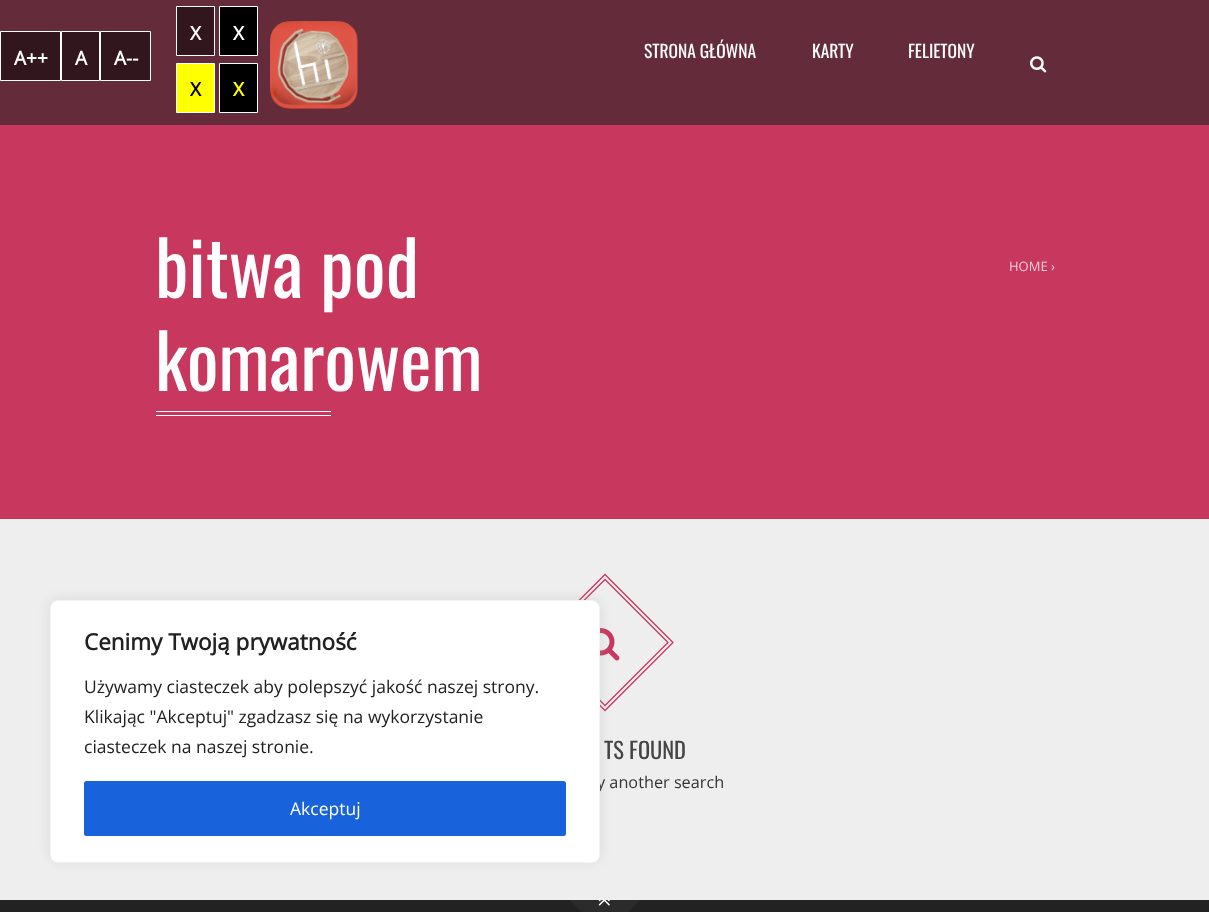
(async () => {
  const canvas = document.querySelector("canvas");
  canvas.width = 1209;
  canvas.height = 912;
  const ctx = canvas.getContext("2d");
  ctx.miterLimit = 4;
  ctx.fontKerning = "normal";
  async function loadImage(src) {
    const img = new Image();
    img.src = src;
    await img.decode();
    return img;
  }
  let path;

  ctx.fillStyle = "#eeeeee";
  ctx.fillRect(0, 0, 1209, 912);
  ctx.fillStyle = "#642b3a";
  ctx.fillRect(0, 0, 1209, 125);
  ctx.fillStyle = "#32161d";
  ctx.beginPath();
  ctx.rect(0.5, 31.5, 60, 49);
  ctx.fill();
  ctx.strokeStyle = "#ffffff";
  ctx.stroke();
  ctx.beginPath();
  ctx.rect(61.5, 31.5, 38, 49);
  ctx.fill();
  ctx.stroke();
  ctx.beginPath();
  ctx.rect(100.5, 31.5, 50, 49);
  ctx.fill();
  ctx.stroke();
  ctx.beginPath();
  ctx.rect(176.5, 6.5, 38, 49);
  ctx.fill();
  ctx.stroke();
  ctx.fillStyle = "#000000";
  ctx.beginPath();
  ctx.rect(219.5, 6.5, 38, 49);
  ctx.fill();
  ctx.stroke();
  ctx.fillStyle = "#ffff00";
  ctx.beginPath();
  ctx.rect(176.5, 63.5, 38, 49);
  ctx.fill();
  ctx.stroke();
  ctx.fillStyle = "#000000";
  ctx.beginPath();
  ctx.rect(219.5, 63.5, 38, 49);
  ctx.fill();
  ctx.stroke();
  ctx.drawImage(await loadImage("img/1.png"), 270, 21, 88, 88);
  ctx.drawImage(await loadImage("img/2.png"), 1030, 56, 17, 17);
  for (const [x, y, w, h, color] of [
    [0, 125, 1209, 394, "#c8385e"],
    [156, 411, 175, 1, "#ffffff"],
    [156, 415, 175, 1, "#ffffff"],
  ]) {
    ctx.fillStyle = color;
    ctx.fillRect(x, y, w, h);
  }
  path = new Path2D("M605 574.5L673 642.5L605 710.5L537 642.5Z");
  ctx.strokeStyle = "#c8385e";
  ctx.lineWidth = 1.3;
  ctx.stroke(path);
  path = new Path2D("M605 579.5L668 642.5L605 705.5L542 642.5Z");
  ctx.stroke(path);
  ctx.drawImage(await loadImage("img/3.png"), 600, 628, 20, 33);
  ctx.fillStyle = "#222222";
  ctx.fillRect(0, 900, 1209, 12);
  ctx.save();
  ctx.beginPath();
  ctx.rect(0, 900, 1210, 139);
  ctx.clip();
  ctx.fillStyle = "#2b2b2b";
  path = new Path2D("M605 865L640 900L605 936L570 900Z");
  ctx.fill(path);
  ctx.restore();
  ctx.drawImage(await loadImage("img/4.png"), 598, 900, 12, 6);
  ctx.fillStyle = "rgba(172, 171, 171, 0.3)";
  ctx.filter = "blur(6px)";
  ctx.beginPath();
  ctx.roundRect(50, 599, 550, 262, 8);
  ctx.fill();
  ctx.filter = "none";
  ctx.font = "bold 19px Open Sans";
  ctx.fillStyle = "#ffffff";
  for (const [text, x, y] of [
    ["A++", 14, 65],
    ["A", 75, 65],
    ["A--", 114, 65],
    ["X", 190, 40],
    ["X", 233, 40],
  ]) {
    ctx.fillText(text, x, y);
  }
  ctx.fillStyle = "#000000";
  ctx.fillText("X", 190, 96);
  ctx.fillStyle = "#ffff00";
  ctx.fillText("X", 233, 96);
  ctx.font = "17.5px Oswald";
  ctx.fillStyle = "#ffffff";
  for (const [text, x, y] of [
    ["STRONA GŁÓWNA", 644, 58],
    ["KARTY", 812, 58],
    ["FELIETONY", 908, 58],
  ]) {
    ctx.fillText(text, x, y);
  }
  ctx.font = "75px Oswald";
  ctx.fillText("bitwa pod", 155, 298);
  ctx.fillText("komarowem", 155, 391);
  ctx.font = "13px Open Sans";
  ctx.fillStyle = "#f1cdd7";
  ctx.fillText("HOME ›", 1009, 271);
  ctx.font = "22.5px Oswald";
  ctx.fillStyle = "#444444";
  ctx.fillText("TS FOUND", 604, 759);
  ctx.font = "16.25px Open Sans";
  ctx.fillStyle = "#343434";
  ctx.fillText("y another search", 597, 788);
  ctx.fillStyle = "#ffffff";
  ctx.beginPath();
  ctx.roundRect(50.5, 600.5, 549, 262, 7.5);
  ctx.fill();
  ctx.strokeStyle = "#f4f4f4";
  ctx.lineWidth = 1;
  ctx.stroke();
  ctx.font = "bold 22.5px Open Sans";
  ctx.fillStyle = "#212121";
  ctx.fillText("Cenimy Twoją prywatność", 84, 650);
  ctx.font = "17.5px Open Sans";
  for (const [text, x, y] of [
    ["Używamy ciasteczek aby polepszyć jakość naszej strony.", 84, 693],
    ["Klikając \"Akceptuj\" zgadzasz się na wykorzystanie", 84, 723],
    ["ciasteczek na naszej stronie.", 84, 753],
  ]) {
    ctx.fillText(text, x, y);
  }
  ctx.fillStyle = "#1863dc";
  ctx.beginPath();
  ctx.roundRect(85.5, 782.5, 479, 52, 1);
  ctx.fill();
  ctx.strokeStyle = "#1863dc";
  ctx.lineWidth = 3;
  ctx.stroke();
  ctx.fillStyle = "#ffffff";
  ctx.fillText("Akceptuj", 290, 815);
})();
